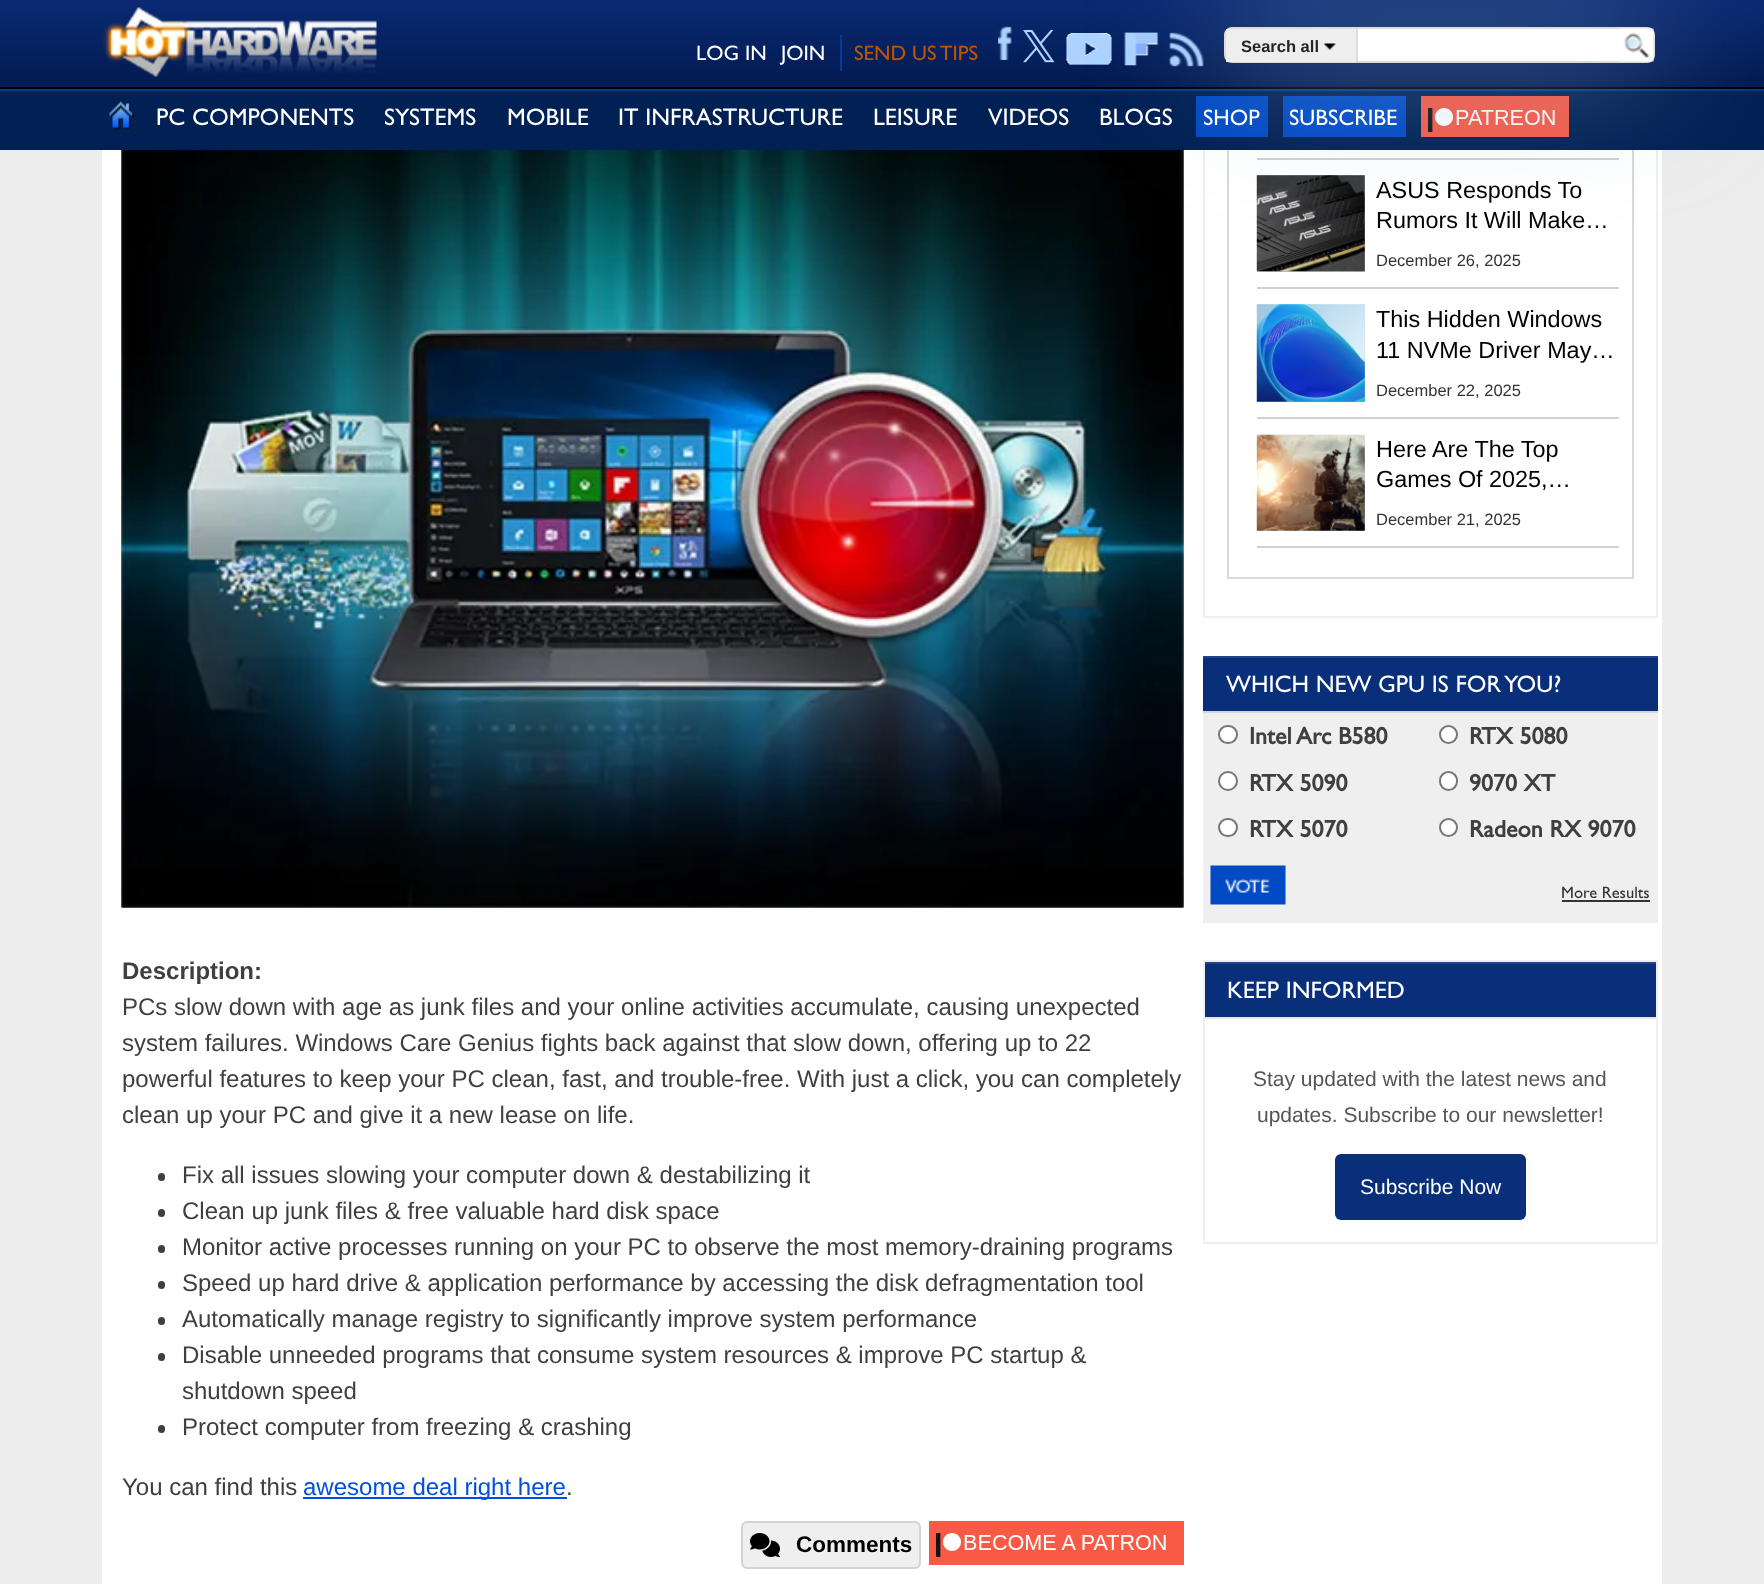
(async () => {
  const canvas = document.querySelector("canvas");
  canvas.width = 1764;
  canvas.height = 1584;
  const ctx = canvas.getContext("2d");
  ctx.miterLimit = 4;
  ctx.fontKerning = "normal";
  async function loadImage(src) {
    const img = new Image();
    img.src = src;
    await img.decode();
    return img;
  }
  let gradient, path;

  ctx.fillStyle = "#ededed";
  ctx.fillRect(0, 0, 1764, 1584);
  ctx.fillStyle = "#ffffff";
  ctx.fillRect(102, 150, 1560, 1434);
  ctx.strokeStyle = "#efefef";
  ctx.lineWidth = 2;
  ctx.strokeRect(1204, -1, 453, 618);
  ctx.strokeStyle = "#d9d9d9";
  ctx.strokeRect(1228, -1, 405, 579);
  gradient = ctx.createLinearGradient(882, 0, 882, 87);
  gradient.addColorStop(0, "#092a73");
  gradient.addColorStop(1, "#031a51");
  ctx.fillStyle = gradient;
  ctx.fillRect(0, 0, 1764, 87);
  ctx.fillStyle = "#000000";
  ctx.fillRect(0, 87, 1764, 2);
  ctx.drawImage(await loadImage("img/1.png"), 103, 7, 274, 70);
  ctx.fillStyle = "#043c92";
  ctx.fillRect(840, 35, 2, 36);
  ctx.drawImage(await loadImage("img/2.png"), 998, 26, 14, 34);
  ctx.drawImage(await loadImage("img/3.png"), 1023, 30, 32, 33);
  ctx.drawImage(await loadImage("img/4.png"), 1066, 33, 46, 32);
  ctx.drawImage(await loadImage("img/5.png"), 1124, 32, 35, 34);
  ctx.drawImage(await loadImage("img/6.png"), 1169, 32, 35, 35);
  for (const [x, y, w, h, color] of [
    [0, 91, 1764, 59, "#012054"],
    [0, 89, 1764, 2, "#043c92"],
    [1196, 96, 72, 41, "#004ac5"],
    [1283, 96, 123, 41, "#004ac5"],
    [1421, 96, 148, 41, "#f85b45"],
  ]) {
    ctx.fillStyle = color;
    ctx.fillRect(x, y, w, h);
  }
  ctx.drawImage(await loadImage("img/10.png"), 1428, 108, 127, 24);
  ctx.fillStyle = "#d1d1d1";
  ctx.fillRect(1257, 158, 362, 2);
  gradient = ctx.createLinearGradient(1311, 176, 1311, 272);
  gradient.addColorStop(0, "#e6e6e6");
  gradient.addColorStop(1, "#b3b3b3");
  ctx.fillStyle = gradient;
  ctx.fillRect(1257, 176, 108, 96);
  ctx.drawImage(await loadImage("img/11.png"), 1256, 175, 109, 97);
  ctx.drawImage(await loadImage("img/15.png"), 121, 150, 1063, 758);
  ctx.drawImage(await loadImage("img/16.png"), 121, 150, 1063, 758);
  ctx.fillStyle = "#8bacd1";
  ctx.filter = "blur(67.5px)";
  ctx.beginPath();
  ctx.roundRect(1224, 27, 431, 36, 8);
  ctx.fill();
  ctx.filter = "none";
  ctx.fillStyle = "#ffffff";
  ctx.beginPath();
  ctx.roundRect(1225, 28, 429, 34, 7);
  ctx.fill();
  ctx.strokeStyle = "#dbdbdb";
  ctx.stroke();
  ctx.fillStyle = "#eeeeee";
  ctx.fillRect(1226, 29, 130, 33);
  ctx.fillStyle = "#dbdbdb";
  ctx.fillRect(1356, 29, 2, 34);
  ctx.drawImage(await loadImage("img/7.png"), 1324, 43, 12, 7);
  ctx.drawImage(await loadImage("img/8.png"), 1619, 28, 35, 34);
  ctx.drawImage(await loadImage("img/9.png"), 109, 101, 25, 29);
  ctx.fillStyle = "#d1d1d1";
  ctx.fillRect(1257, 287, 362, 2);
  gradient = ctx.createLinearGradient(1311, 305, 1311, 402);
  gradient.addColorStop(0, "#e6e6e6");
  gradient.addColorStop(1, "#b3b3b3");
  ctx.fillStyle = gradient;
  ctx.fillRect(1257, 305, 108, 97);
  ctx.drawImage(await loadImage("img/12.png"), 1256, 304, 109, 98);
  ctx.fillStyle = "#d1d1d1";
  ctx.fillRect(1257, 417, 362, 2);
  gradient = ctx.createLinearGradient(1311, 435, 1311, 531);
  gradient.addColorStop(0, "#e6e6e6");
  gradient.addColorStop(1, "#b3b3b3");
  ctx.fillStyle = gradient;
  ctx.fillRect(1257, 435, 108, 96);
  ctx.drawImage(await loadImage("img/13.png"), 1256, 434, 109, 97);
  ctx.fillStyle = "#d1d1d1";
  ctx.fillRect(1257, 546, 362, 2);
  ctx.fillStyle = "#efefef";
  ctx.fillRect(1203, 713, 455, 210);
  ctx.fillStyle = "#d7d7d7";
  path = new Path2D("M1203 711V713H1658V657V711Z");
  ctx.fill(path);
  ctx.fillStyle = "#092f7a";
  ctx.fillRect(1203, 658, 455, 53);
  ctx.fillStyle = "#224487";
  ctx.fillRect(1203, 656, 455, 2);
  ctx.fillStyle = "#ffffff";
  ctx.beginPath();
  ctx.roundRect(1219, 726, 18, 17, 8.5);
  ctx.fill();
  ctx.strokeStyle = "#767676";
  ctx.stroke();
  ctx.beginPath();
  ctx.arc(1448.5, 734.5, 8.5, 0, Math.PI * 2);
  ctx.fill();
  ctx.stroke();
  ctx.beginPath();
  ctx.arc(1228, 781, 9, 0, Math.PI * 2);
  ctx.fill();
  ctx.stroke();
  ctx.beginPath();
  ctx.roundRect(1440, 772, 17, 18, 8.5);
  ctx.fill();
  ctx.stroke();
  ctx.beginPath();
  ctx.roundRect(1219, 819, 18, 17, 8.5);
  ctx.fill();
  ctx.stroke();
  ctx.beginPath();
  ctx.arc(1448.5, 827.5, 8.5, 0, Math.PI * 2);
  ctx.fill();
  ctx.stroke();
  ctx.drawImage(await loadImage("img/14.png"), 1210, 865, 76, 40);
  ctx.fillStyle = "#333333";
  ctx.fillRect(1562, 900, 88, 2);
  ctx.strokeStyle = "#efefef";
  ctx.strokeRect(1204, 961, 453, 282);
  for (const [x, y, w, h, color] of [
    [1205, 1017, 451, 2, "#e6e6e6"],
    [1205, 964, 451, 53, "#092f7a"],
    [1205, 962, 451, 2, "#224487"],
  ]) {
    ctx.fillStyle = color;
    ctx.fillRect(x, y, w, h);
  }
  ctx.fillStyle = "#092f7a";
  ctx.beginPath();
  ctx.roundRect(1335, 1154, 191, 66, 6);
  ctx.fill();
  ctx.fillStyle = "#3f3f3f";
  ctx.beginPath();
  ctx.roundRect(158, 1173, 7, 8, 3.5);
  ctx.fill();
  ctx.beginPath();
  ctx.roundRect(158, 1209, 7, 8, 3.5);
  ctx.fill();
  ctx.beginPath();
  ctx.roundRect(158, 1245, 7, 8, 3.5);
  ctx.fill();
  ctx.beginPath();
  ctx.roundRect(158, 1281, 7, 8, 3.5);
  ctx.fill();
  ctx.beginPath();
  ctx.roundRect(158, 1317, 7, 8, 3.5);
  ctx.fill();
  ctx.beginPath();
  ctx.roundRect(158, 1353, 7, 8, 3.5);
  ctx.fill();
  ctx.beginPath();
  ctx.roundRect(158, 1425, 7, 8, 3.5);
  ctx.fill();
  ctx.fillStyle = "#004fe0";
  ctx.fillRect(303, 1497, 264, 2);
  ctx.fillStyle = "#efefef";
  ctx.beginPath();
  ctx.roundRect(742, 1522, 178, 46, 5);
  ctx.fill();
  ctx.strokeStyle = "#d3d3d3";
  ctx.stroke();
  ctx.drawImage(await loadImage("img/17.png"), 750, 1533, 30, 24);
  ctx.fillStyle = "#f85b45";
  ctx.fillRect(929, 1521, 255, 44);
  ctx.drawImage(await loadImage("img/18.png"), 936, 1533, 230, 24);
  ctx.font = "21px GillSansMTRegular";
  ctx.fillStyle = "#ffffff";
  ctx.fillText("LOG IN", 696, 60);
  ctx.fillText("JOIN", 781, 60);
  ctx.fillStyle = "#c05500";
  ctx.fillText("SEND US TIPS", 854, 60);
  ctx.font = "bold 16.5px Liberation Sans";
  ctx.fillStyle = "#252525";
  ctx.fillText("Search all", 1241, 52);
  ctx.font = "24px GillSansMTRegular";
  ctx.fillStyle = "#ffffff";
  for (const [text, x, y] of [
    ["PC COMPONENTS", 156, 125],
    ["SYSTEMS", 384, 125],
    ["MOBILE", 507, 125],
    ["IT INFRASTRUCTURE", 618, 125],
    ["LEISURE", 873, 125],
    ["VIDEOS", 988, 125],
    ["BLOGS", 1099, 125],
  ]) {
    ctx.fillText(text, x, y);
  }
  ctx.font = "22.5px GillSansMTRegular";
  ctx.fillText("SHOP", 1203, 125);
  ctx.fillText("SUBSCRIBE", 1289, 125);
  ctx.font = "23.4px Liberation Sans";
  ctx.fillStyle = "#000000";
  ctx.fillText("ASUS Responds To", 1376, 198);
  ctx.fillText("Rumors It Will Make…", 1376, 228);
  ctx.font = "16.5px Liberation Sans";
  ctx.fillStyle = "#333333";
  ctx.fillText("December 26, 2025", 1376, 266);
  ctx.font = "23.4px Liberation Sans";
  ctx.fillStyle = "#000000";
  ctx.fillText("This Hidden Windows", 1376, 327);
  ctx.fillText("11 NVMe Driver May…", 1376, 358);
  ctx.font = "16.5px Liberation Sans";
  ctx.fillStyle = "#333333";
  ctx.fillText("December 22, 2025", 1376, 396);
  ctx.font = "23.4px Liberation Sans";
  ctx.fillStyle = "#000000";
  ctx.fillText("Here Are The Top", 1376, 457);
  ctx.fillText("Games Of 2025,…", 1376, 487);
  ctx.font = "16.5px Liberation Sans";
  ctx.fillStyle = "#333333";
  ctx.fillText("December 21, 2025", 1376, 525);
  ctx.font = "24px GillSansMTRegular";
  ctx.fillStyle = "#ffffff";
  ctx.fillText("WHICH NEW GPU IS FOR YOU?", 1226, 692);
  ctx.font = "bold 24px GillSansMTRegular";
  ctx.fillStyle = "#3f3f3f";
  for (const [text, x, y] of [
    ["Intel Arc B580", 1249, 744],
    ["RTX 5080", 1469, 744],
    ["RTX 5090", 1249, 791],
    ["9070 XT", 1469, 791],
    ["RTX 5070", 1249, 837],
    ["Radeon RX 9070", 1469, 837],
  ]) {
    ctx.fillText(text, x, y);
  }
  ctx.font = "16.5px GillSansMTRegular";
  ctx.fillStyle = "#333333";
  ctx.fillText("More Results", 1561, 898);
  ctx.font = "24px GillSansMTRegular";
  ctx.fillStyle = "#ffffff";
  ctx.fillText("KEEP INFORMED", 1227, 998);
  ctx.font = "21px Liberation Sans";
  ctx.fillStyle = "#555555";
  ctx.fillText("Stay updated with the latest news and", 1253, 1086);
  ctx.fillText("updates. Subscribe to our newsletter!", 1257, 1122);
  ctx.fillStyle = "#ffffff";
  ctx.fillText("Subscribe Now", 1360, 1194);
  ctx.font = "bold 24px Liberation Sans";
  ctx.fillStyle = "#3f3f3f";
  ctx.fillText("Description:", 122, 979);
  ctx.font = "24px Liberation Sans";
  for (const [text, x, y] of [
    ["PCs slow down with age as junk files and your online activities accumulate, causing unexpected", 122, 1015],
    ["system failures. Windows Care Genius fights back against that slow down, offering up to 22", 122, 1051],
    ["powerful features to keep your PC clean, fast, and trouble-free. With just a click, you can completely", 122, 1087],
    ["clean up your PC and give it a new lease on life.", 122, 1123],
    ["Fix all issues slowing your computer down & destabilizing it", 182, 1183],
    ["Clean up junk files & free valuable hard disk space", 182, 1219],
    ["Monitor active processes running on your PC to observe the most memory-draining programs", 182, 1255],
    ["Speed up hard drive & application performance by accessing the disk defragmentation tool", 182, 1291],
    ["Automatically manage registry to significantly improve system performance", 182, 1327],
    ["Disable unneeded programs that consume system resources & improve PC startup &", 182, 1363],
    ["shutdown speed", 182, 1399],
    ["Protect computer from freezing & crashing", 182, 1435],
    ["You can find this", 122, 1495],
  ]) {
    ctx.fillText(text, x, y);
  }
  ctx.fillStyle = "#004fe0";
  ctx.fillText("awesome deal right here", 303, 1495);
  ctx.fillStyle = "#3f3f3f";
  ctx.fillText(".", 566, 1495);
  ctx.font = "bold 22.5px Liberation Sans";
  ctx.fillStyle = "#000000";
  ctx.fillText("Comments", 796, 1552);
})();
